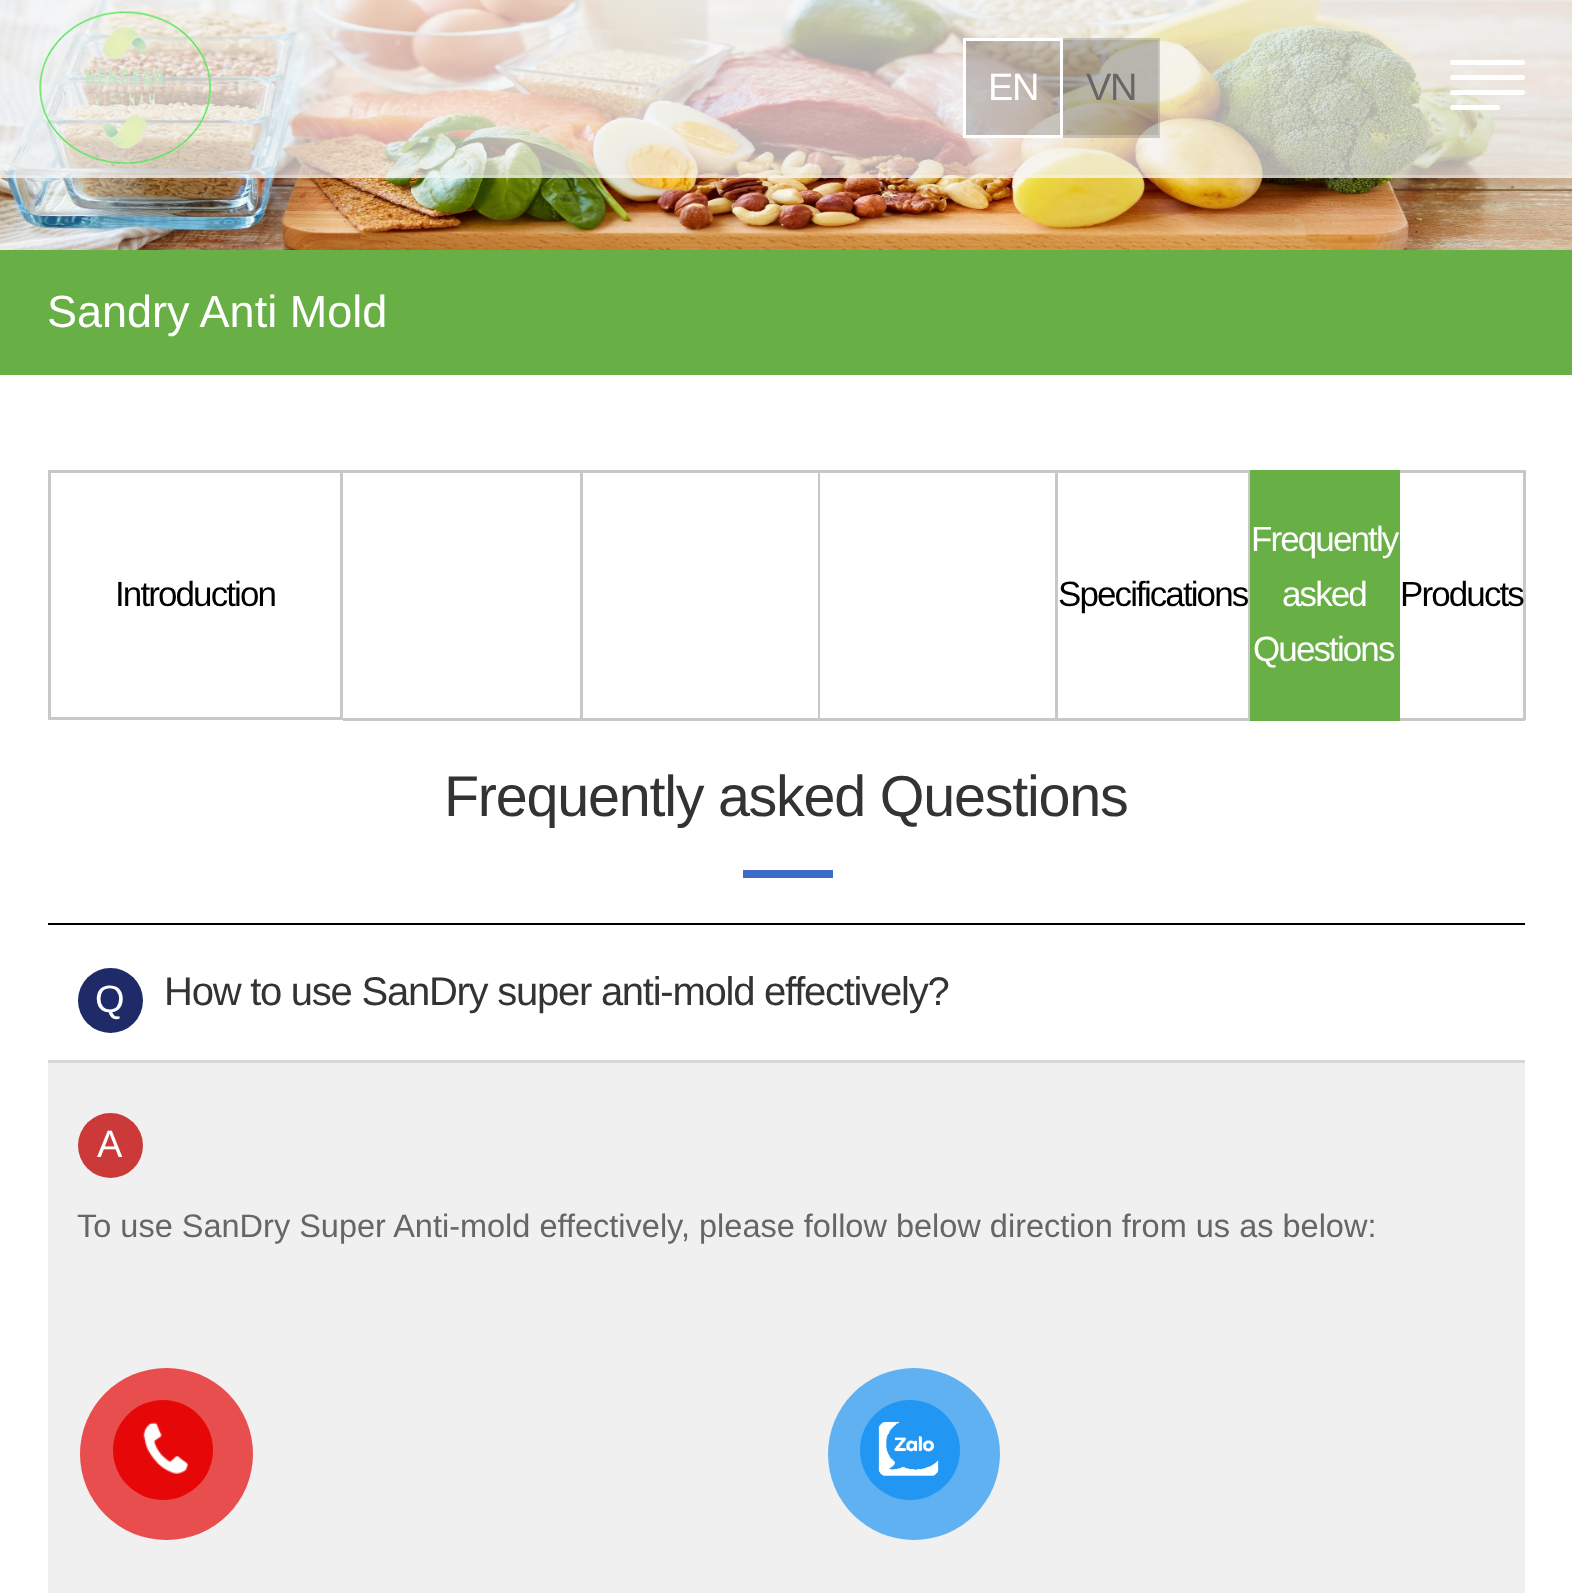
(async () => {
  const canvas = document.querySelector("canvas");
  canvas.width = 1572;
  canvas.height = 1593;
  const ctx = canvas.getContext("2d");
  ctx.miterLimit = 4;
  ctx.fontKerning = "normal";
  async function loadImage(src) {
    const img = new Image();
    img.src = src;
    await img.decode();
    return img;
  }
  let path;

  ctx.fillStyle = "#ffffff";
  ctx.fillRect(0, 0, 1572, 1593);
  ctx.drawImage(await loadImage("img/2.png"), 0, 0, 1572, 250);
  ctx.fillStyle = "rgba(242, 242, 242, 0.7)";
  ctx.fillRect(0, 0, 1572, 178);
  ctx.fillStyle = "rgba(255, 255, 255, 0.25)";
  ctx.fillRect(0, 175, 1572, 3);
  ctx.drawImage(await loadImage("img/1.png"), 39, 11, 173, 154);
  ctx.fillStyle = "rgba(60, 61, 59, 0.25)";
  ctx.beginPath();
  ctx.rect(964.5, 39.5, 97, 97);
  ctx.fill();
  ctx.strokeStyle = "#ffffff";
  ctx.lineWidth = 3;
  ctx.stroke();
  ctx.fillStyle = "rgba(0, 0, 0, 0.25)";
  ctx.fillRect(1063, 38, 97, 100);
  ctx.fillStyle = "rgba(255, 255, 255, 0.25)";
  path = new Path2D("M1062 38H1160L1158 40H1062Z");
  ctx.fill(path);
  path = new Path2D("M1160 38V138L1158 135V40Z");
  ctx.fill(path);
  path = new Path2D("M1160 138H1062V135H1158Z");
  ctx.fill(path);
  ctx.fillStyle = "#ffffff";
  ctx.beginPath();
  ctx.roundRect(1450, 60, 75, 5, 2.5);
  ctx.fill();
  ctx.beginPath();
  ctx.roundRect(1450, 75, 75, 5, 2.5);
  ctx.fill();
  ctx.beginPath();
  ctx.roundRect(1450, 90, 75, 5, 2.5);
  ctx.fill();
  ctx.beginPath();
  ctx.roundRect(1450, 105, 50, 5, 2.5);
  ctx.fill();
  for (const [x, y, w, h, color] of [
    [0, 250, 1572, 125, "#68af45"],
    [343, 470, 907, 3, "#c8c8c8"],
    [580, 470, 3, 250, "#c8c8c8"],
    [343, 718, 240, 3, "#c8c8c8"],
  ]) {
    ctx.fillStyle = color;
    ctx.fillRect(x, y, w, h);
  }
  ctx.strokeStyle = "#c8c8c8";
  ctx.strokeRect(49.5, 471.5, 292, 247);
  for (const [x, y, w, h, color] of [
    [818, 470, 2, 250, "#c8c8c8"],
    [583, 718, 237, 3, "#c8c8c8"],
    [1055, 470, 3, 250, "#c8c8c8"],
    [820, 718, 238, 3, "#c8c8c8"],
    [1248, 470, 2, 250, "#c8c8c8"],
    [1058, 718, 192, 3, "#c8c8c8"],
    [1250, 470, 148, 248, "#68af45"],
    [1398, 470, 2, 250, "#68af45"],
    [1250, 718, 150, 3, "#68af45"],
    [1400, 470, 125, 3, "#c8c8c8"],
    [1523, 470, 3, 250, "#c8c8c8"],
    [1400, 718, 125, 3, "#c8c8c8"],
    [743, 870, 90, 8, "#3c6bc9"],
    [48, 923, 1477, 2, "#000000"],
  ]) {
    ctx.fillStyle = color;
    ctx.fillRect(x, y, w, h);
  }
  ctx.fillStyle = "#1f2a68";
  ctx.beginPath();
  ctx.arc(110.5, 1000.5, 32.5, 0, Math.PI * 2);
  ctx.fill();
  ctx.fillStyle = "#f0f0f0";
  ctx.fillRect(48, 1063, 1477, 530);
  ctx.fillStyle = "#d7d7d7";
  ctx.fillRect(48, 1060, 1477, 3);
  ctx.fillStyle = "#cc3939";
  ctx.beginPath();
  ctx.arc(110.5, 1145.5, 32.5, 0, Math.PI * 2);
  ctx.fill();
  ctx.fillStyle = "#e94e4e";
  ctx.beginPath();
  ctx.roundRect(80, 1368, 173, 172, 86);
  ctx.fill();
  ctx.fillStyle = "#e60808";
  ctx.beginPath();
  ctx.arc(163, 1450, 50, 0, Math.PI * 2);
  ctx.fill();
  ctx.drawImage(await loadImage("img/3.png"), 143, 1422, 45, 52);
  ctx.fillStyle = "#5fb1f2";
  ctx.beginPath();
  ctx.arc(914, 1454, 86, 0, Math.PI * 2);
  ctx.fill();
  ctx.fillStyle = "#2196f3";
  ctx.beginPath();
  ctx.arc(910, 1450, 50, 0, Math.PI * 2);
  ctx.fill();
  ctx.drawImage(await loadImage("img/4.png"), 878, 1421, 61, 55);
  ctx.letterSpacing = "-1.25px";
  ctx.font = "38px Liberation Sans";
  ctx.fillStyle = "#ffffff";
  ctx.fillText("EN", 988, 100);
  ctx.fillStyle = "#666666";
  ctx.fillText("VN", 1086, 100);
  ctx.letterSpacing = "0px";
  ctx.font = "45px Liberation Sans";
  ctx.fillStyle = "#ffffff";
  ctx.fillText("Sandry Anti Mold", 47, 327);
  ctx.letterSpacing = "-1.9px";
  ctx.font = "35px Liberation Sans";
  ctx.fillStyle = "#000000";
  ctx.fillText("Introduction", 115, 606);
  ctx.fillText("Specifications", 1058, 606);
  ctx.fillStyle = "#ffffff";
  for (const [text, x, y] of [
    ["Frequently", 1251, 551],
    ["asked", 1282, 606],
    ["Questions", 1253, 661],
  ]) {
    ctx.fillText(text, x, y);
  }
  ctx.fillStyle = "#000000";
  ctx.fillText("Products", 1400, 606);
  ctx.letterSpacing = "-1.25px";
  ctx.font = "57.5px Liberation Sans";
  ctx.fillStyle = "#333333";
  ctx.fillText("Frequently asked Questions", 444, 816);
  ctx.letterSpacing = "0px";
  ctx.font = "38px Liberation Sans";
  ctx.fillStyle = "#ffffff";
  ctx.fillText("Q", 95, 1012);
  ctx.letterSpacing = "-1.25px";
  ctx.font = "40px Liberation Sans";
  ctx.fillStyle = "#333333";
  ctx.fillText("How to use SanDry super anti-mold effectively?", 164, 1005);
  ctx.letterSpacing = "0px";
  ctx.font = "38px Liberation Sans";
  ctx.fillStyle = "#ffffff";
  ctx.fillText("A", 97, 1157);
  ctx.font = "32.5px Liberation Sans";
  ctx.fillStyle = "#666666";
  ctx.fillText("To use SanDry Super Anti-mold effectively, please follow below direction from us as below:", 77, 1237);
})();
